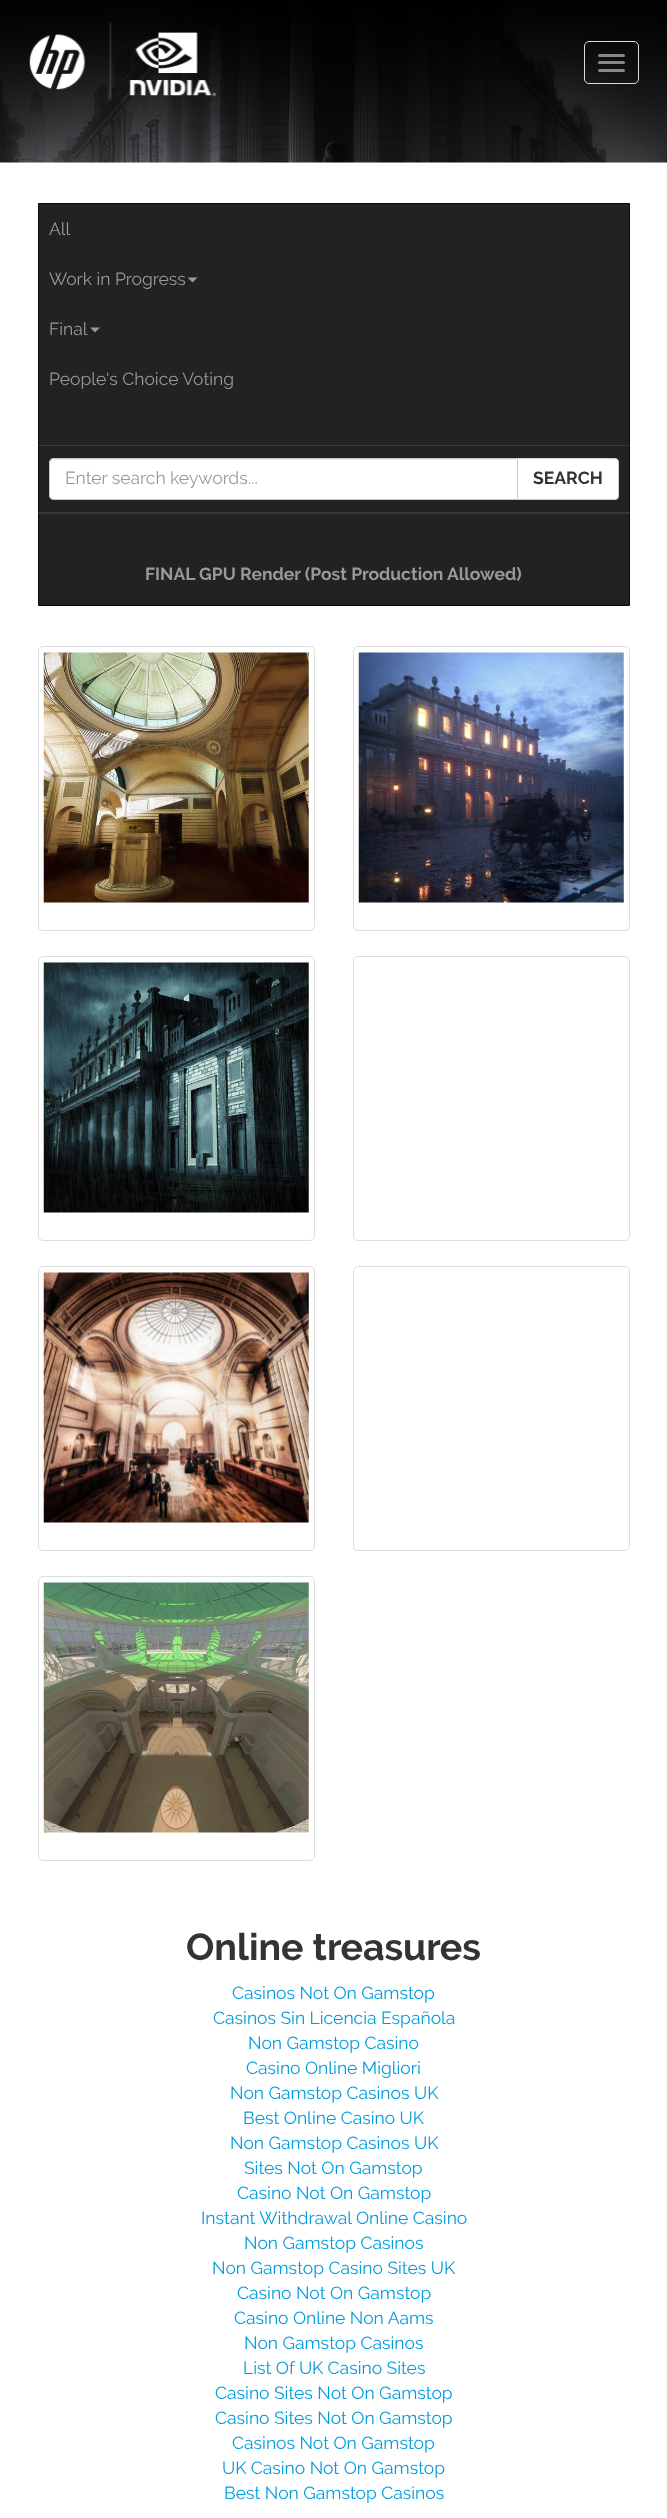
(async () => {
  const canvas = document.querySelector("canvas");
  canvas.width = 667;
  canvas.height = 2518;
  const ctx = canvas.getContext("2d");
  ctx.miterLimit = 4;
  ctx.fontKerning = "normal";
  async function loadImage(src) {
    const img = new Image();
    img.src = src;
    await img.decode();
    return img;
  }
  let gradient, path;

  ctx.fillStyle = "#ffffff";
  ctx.fillRect(0, 0, 667, 2518);
  ctx.drawImage(await loadImage("img/1.png"), 0, 0, 667, 163);
  gradient = ctx.createLinearGradient(334, 0, 334, 163);
  gradient.addColorStop(0, "rgba(0, 0, 0, 0.9)");
  gradient.addColorStop(1, "rgba(0, 0, 0, 0)");
  ctx.fillStyle = gradient;
  ctx.fillRect(0, 0, 667, 158);
  ctx.drawImage(await loadImage("img/2.png"), 29, 22, 188, 79);
  ctx.beginPath();
  ctx.roundRect(584.5, 41.5, 54, 42, 4.5);
  ctx.strokeStyle = "#dddddd";
  ctx.stroke();
  ctx.fillStyle = "#888888";
  ctx.beginPath();
  ctx.roundRect(598, 54, 27, 3, 1.5);
  ctx.fill();
  ctx.beginPath();
  ctx.roundRect(598, 61, 27, 3, 1.5);
  ctx.fill();
  ctx.beginPath();
  ctx.roundRect(598, 69, 27, 3, 1.5);
  ctx.fill();
  ctx.fillStyle = "#222222";
  ctx.beginPath();
  ctx.rect(38.5, 203.5, 591, 402);
  ctx.fill();
  ctx.strokeStyle = "#090909";
  ctx.stroke();
  ctx.fillStyle = "#999999";
  path = new Path2D("M187.5 277.5H197.5L192.5 282.5Z");
  ctx.fill(path);
  path = new Path2D("M90 327.5H100L95 332.5Z");
  ctx.fill(path);
  ctx.fillStyle = "rgba(255, 255, 255, 0.1)";
  path = new Path2D("M30 512V514H638V446V512Z");
  ctx.fill(path);
  ctx.fillRect(30, 445, 608, 1);
  ctx.fillStyle = "#ffffff";
  ctx.beginPath();
  ctx.roundRect(516.5, 458.5, 102, 41, [0, 3.5, 3.5, 0]);
  ctx.fill();
  ctx.strokeStyle = "#cccccc";
  ctx.stroke();
  ctx.beginPath();
  ctx.roundRect(49, 458, 469, 42, [5, 0, 0, 5]);
  ctx.fill();
  ctx.fillStyle = "#ececec";
  path = new Path2D("M54 460H516V459H54C51 459 50 461 50 464C50 462 52 460 54 460Z");
  ctx.fill(path);
  ctx.beginPath();
  ctx.roundRect(49.5, 458.5, 468, 41, [4.5, 0, 0, 4.5]);
  ctx.strokeStyle = "#c7c7c7";
  ctx.stroke();
  ctx.beginPath();
  ctx.roundRect(38.5, 646.5, 276, 284, 4.5);
  ctx.strokeStyle = "#dddddd";
  ctx.stroke();
  ctx.drawImage(await loadImage("img/3.png"), 43, 652, 266, 251);
  ctx.beginPath();
  ctx.roundRect(353.5, 646.5, 276, 284, 4.5);
  ctx.stroke();
  ctx.drawImage(await loadImage("img/4.png"), 358, 652, 266, 251);
  ctx.beginPath();
  ctx.roundRect(38.5, 956.5, 276, 284, 4.5);
  ctx.stroke();
  ctx.drawImage(await loadImage("img/5.png"), 43, 962, 266, 251);
  ctx.beginPath();
  ctx.roundRect(353.5, 956.5, 276, 284, 4.5);
  ctx.stroke();
  ctx.beginPath();
  ctx.roundRect(38.5, 1266.5, 276, 284, 4.5);
  ctx.stroke();
  ctx.drawImage(await loadImage("img/6.png"), 43, 1272, 266, 251);
  ctx.beginPath();
  ctx.roundRect(353.5, 1266.5, 276, 284, 4.5);
  ctx.stroke();
  ctx.beginPath();
  ctx.roundRect(38.5, 1576.5, 276, 284, 4.5);
  ctx.stroke();
  ctx.drawImage(await loadImage("img/7.png"), 43, 1582, 266, 251);
  ctx.font = "17.5px Raleway";
  ctx.fillStyle = "#999999";
  for (const [text, x, y] of [
    ["All", 49, 235],
    ["Work in Progress", 49, 285],
    ["Final", 49, 335],
    ["People's Choice Voting", 49, 385],
    ["Enter search keywords...", 65, 484],
  ]) {
    ctx.fillText(text, x, y);
  }
  ctx.font = "bold 17.5px Raleway";
  ctx.fillStyle = "#333333";
  ctx.fillText("SEARCH", 533, 484);
  ctx.fillStyle = "#999999";
  ctx.fillText("FINAL GPU Render (Post Production Allowed)", 145, 580);
  ctx.font = "bold 37.5px Raleway";
  ctx.fillStyle = "#333333";
  ctx.fillText("Online treasures", 186, 1960);
  ctx.font = "17.5px Raleway";
  ctx.fillStyle = "#009cde";
  for (const [text, x, y] of [
    ["Casinos Not On Gamstop", 232, 1999],
    ["Casinos Sin Licencia Española", 213, 2024],
    ["Non Gamstop Casino", 248, 2049],
    ["Casino Online Migliori", 246, 2074],
    ["Non Gamstop Casinos UK", 230, 2099],
    ["Best Online Casino UK", 243, 2124],
    ["Non Gamstop Casinos UK", 230, 2149],
    ["Sites Not On Gamstop", 244, 2174],
    ["Casino Not On Gamstop", 237, 2199],
    ["Instant Withdrawal Online Casino", 201, 2224],
    ["Non Gamstop Casinos", 244, 2249],
    ["Non Gamstop Casino Sites UK", 212, 2274],
    ["Casino Not On Gamstop", 237, 2299],
    ["Casino Online Non Aams", 234, 2324],
    ["Non Gamstop Casinos", 244, 2349],
    ["List Of UK Casino Sites", 243, 2374],
    ["Casino Sites Not On Gamstop", 215, 2399],
    ["Casino Sites Not On Gamstop", 215, 2424],
    ["Casinos Not On Gamstop", 232, 2449],
    ["UK Casino Not On Gamstop", 222, 2474],
    ["Best Non Gamstop Casinos", 224, 2499],
  ]) {
    ctx.fillText(text, x, y);
  }
})();
